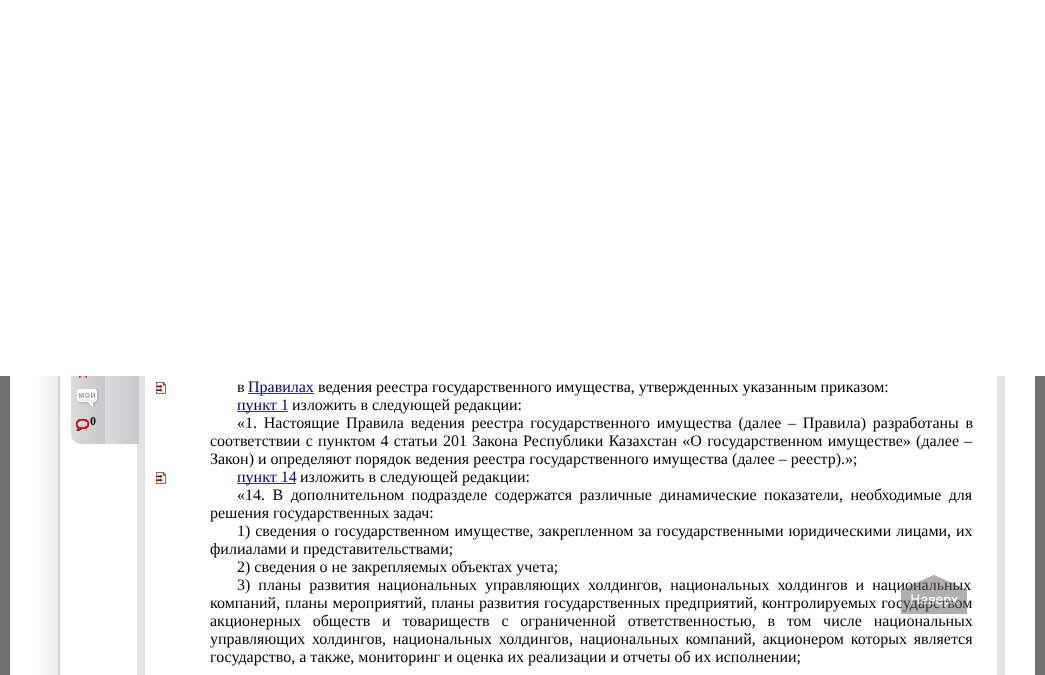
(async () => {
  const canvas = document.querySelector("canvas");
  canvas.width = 1045;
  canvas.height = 675;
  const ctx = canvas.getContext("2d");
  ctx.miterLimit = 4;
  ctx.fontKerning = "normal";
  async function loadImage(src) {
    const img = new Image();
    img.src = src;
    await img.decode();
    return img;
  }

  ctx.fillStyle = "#727171";
  ctx.fillRect(0, 0, 1045, 675);
  ctx.fillStyle = "#ffffff";
  ctx.fillRect(10, 376, 1025, 299);
  ctx.fillStyle = "#d1d1cf";
  ctx.beginPath();
  ctx.roundRect(71, 70, 34, 374, [0, 0, 0, 10]);
  ctx.fill();
  ctx.fillStyle = "#ffffff";
  ctx.fillRect(0, 0, 1045, 376);
  ctx.drawImage(await loadImage("img/1.png"), 39, 376, 21, 299);
  ctx.drawImage(await loadImage("img/2.png"), 71, 376, 34, 68);
  ctx.drawImage(await loadImage("img/3.png"), 79, 376, 8, 2);
  ctx.drawImage(await loadImage("img/4.png"), 77, 389, 22, 20);
  ctx.drawImage(await loadImage("img/5.png"), 76, 419, 13, 12);
  ctx.fillStyle = "#e3e5e4";
  ctx.fillRect(137, 376, 8, 299);
  ctx.drawImage(await loadImage("img/6.png"), 105, 376, 34, 68);
  ctx.fillRect(997, 376, 8, 299);
  ctx.drawImage(await loadImage("img/7.png"), 156, 382, 10, 12);
  ctx.fillStyle = "#333399";
  ctx.fillRect(248, 393, 66, 1);
  ctx.fillRect(237, 411, 51, 1);
  ctx.drawImage(await loadImage("img/7.png"), 156, 472, 10, 12);
  ctx.fillRect(237, 483, 59, 1);
  ctx.font = "bold 12px Liberation Serif";
  ctx.fillStyle = "#000000";
  ctx.fillText("0", 90, 425);
  ctx.font = "16px Liberation Serif";
  ctx.fillText("в", 237, 392);
  ctx.fillStyle = "#000080";
  ctx.fillText("Правилах", 248, 392);
  ctx.fillStyle = "#000000";
  ctx.fillText("ведения реестра государственного имущества, утвержденных указанным приказом:", 318, 392);
  ctx.fillStyle = "#000080";
  ctx.fillText("пункт 1", 237, 410);
  ctx.fillStyle = "#000000";
  ctx.fillText("изложить в следующей редакции:", 292, 410);
  ctx.wordSpacing = "2.75px";
  ctx.fillText("«1. Настоящие Правила ведения реестра государственного имущества (далее – Правила) разработаны в", 237, 428);
  ctx.wordSpacing = "1.25px";
  ctx.fillText("соответствии с пунктом 4 статьи 201 Закона Республики Казахстан «О государственном имуществе» (далее –", 210, 446);
  ctx.wordSpacing = "0px";
  ctx.fillText("Закон) и определяют порядок ведения реестра государственного имущества (далее – реестр).»;", 210, 464);
  ctx.fillStyle = "#000080";
  ctx.fillText("пункт 14", 237, 482);
  ctx.fillStyle = "#000000";
  ctx.fillText("изложить в следующей редакции:", 300, 482);
  ctx.wordSpacing = "3.5px";
  ctx.fillText("«14. В дополнительном подразделе содержатся различные динамические показатели, необходимые для", 237, 500);
  ctx.wordSpacing = "0px";
  ctx.fillText("решения государственных задач:", 210, 518);
  ctx.wordSpacing = "0.9px";
  ctx.fillText("1) сведения о государственном имуществе, закрепленном за государственными юридическими лицами, их", 237, 536);
  ctx.wordSpacing = "0px";
  ctx.fillText("филиалами и представительствами;", 210, 554);
  ctx.fillText("2) сведения о не закрепляемых объектах учета;", 237, 572);
  ctx.wordSpacing = "4px";
  ctx.fillText("3) планы развития национальных управляющих холдингов, национальных холдингов и национальных", 237, 590);
  ctx.wordSpacing = "0.75px";
  ctx.fillText("компаний, планы мероприятий, планы развития государственных предприятий, контролируемых государством", 210, 608);
  ctx.wordSpacing = "7.75px";
  ctx.fillText("акционерных обществ и товариществ с ограниченной ответственностью, в том числе национальных", 210, 626);
  ctx.wordSpacing = "2.75px";
  ctx.fillText("управляющих холдингов, национальных холдингов, национальных компаний, акционером которых является", 210, 644);
  ctx.wordSpacing = "0px";
  ctx.fillText("государство, а также, мониторинг и оценка их реализации и отчеты об их исполнении;", 210, 662);
  ctx.drawImage(await loadImage("img/8.png"), 901, 575, 66, 39);
})();
